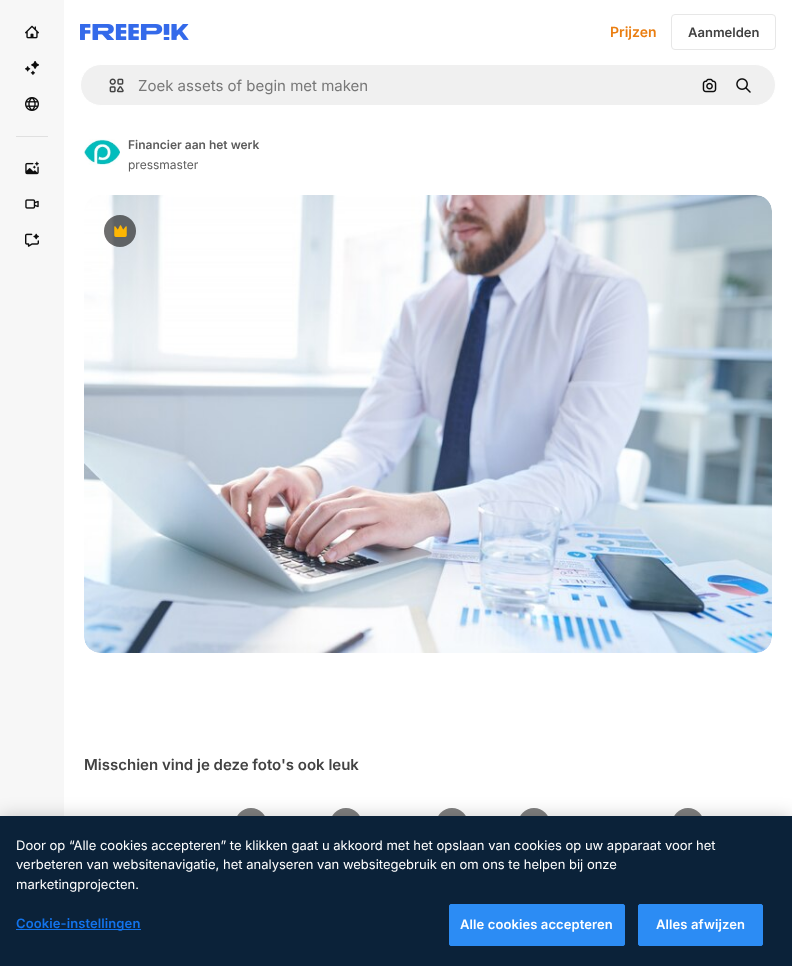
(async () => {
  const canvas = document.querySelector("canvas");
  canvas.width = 792;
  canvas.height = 966;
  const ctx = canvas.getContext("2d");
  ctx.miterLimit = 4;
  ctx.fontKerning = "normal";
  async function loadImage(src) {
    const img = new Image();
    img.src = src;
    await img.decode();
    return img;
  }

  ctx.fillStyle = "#ffffff";
  ctx.fillRect(0, 0, 792, 966);
  ctx.fillStyle = "#f7f7f7";
  ctx.fillRect(0, 0, 64, 816);
  ctx.drawImage(await loadImage("img/1.png"), 25, 25, 14, 14);
  ctx.drawImage(await loadImage("img/2.png"), 25, 61, 14, 14);
  ctx.drawImage(await loadImage("img/3.png"), 25, 97, 14, 14);
  ctx.fillStyle = "#e0e0e0";
  ctx.fillRect(16, 136, 32, 1);
  ctx.drawImage(await loadImage("img/4.png"), 25, 161, 14, 14);
  ctx.drawImage(await loadImage("img/5.png"), 25, 199, 14, 10);
  ctx.drawImage(await loadImage("img/6.png"), 25, 233, 14, 14);
  ctx.drawImage(await loadImage("img/7.png"), 80, 24, 109, 16);
  ctx.beginPath();
  ctx.roundRect(671.5, 14.5, 104, 35, 3.5);
  ctx.strokeStyle = "#e7e7e7";
  ctx.stroke();
  ctx.fillStyle = "#f0f0f0";
  ctx.beginPath();
  ctx.roundRect(80.5, 64.5, 695, 41, 20.5);
  ctx.fill();
  ctx.strokeStyle = "#ffffff";
  ctx.stroke();
  ctx.drawImage(await loadImage("img/8.png"), 109, 78, 15, 15);
  ctx.drawImage(await loadImage("img/9.png"), 702, 78, 15, 15);
  ctx.drawImage(await loadImage("img/10.png"), 736, 78, 15, 15);
  ctx.drawImage(await loadImage("img/11.png"), 84, 139, 36, 26);
  ctx.drawImage(await loadImage("img/12.png"), 84, 195, 688, 458);
  ctx.fillStyle = "rgba(13, 13, 13, 0.6)";
  ctx.beginPath();
  ctx.arc(120, 231, 16, 0, Math.PI * 2);
  ctx.fill();
  ctx.drawImage(await loadImage("img/13.png"), 114, 225, 13, 12);
  ctx.fillStyle = "#808080";
  ctx.beginPath();
  ctx.arc(251, 824, 16, 0, Math.PI * 2);
  ctx.fill();
  ctx.beginPath();
  ctx.arc(346, 824, 16, 0, Math.PI * 2);
  ctx.fill();
  ctx.beginPath();
  ctx.arc(452, 824, 16, 0, Math.PI * 2);
  ctx.fill();
  ctx.beginPath();
  ctx.arc(534, 824, 16, 0, Math.PI * 2);
  ctx.fill();
  ctx.beginPath();
  ctx.arc(688, 824, 16, 0, Math.PI * 2);
  ctx.fill();
  ctx.fillStyle = "rgba(0, 0, 0, 0.2)";
  ctx.filter = "blur(9px)";
  ctx.beginPath();
  ctx.rect(0, 816, 792, 150);
  ctx.fill();
  ctx.filter = "none";
  ctx.fillStyle = "#0b2239";
  ctx.fillRect(0, 816, 792, 150);
  ctx.fillStyle = "#1273eb";
  ctx.fillRect(16, 929, 125, 1);
  ctx.fillStyle = "#2c8cf4";
  ctx.beginPath();
  ctx.roundRect(449.5, 904.5, 175, 41, 1.5);
  ctx.fill();
  ctx.strokeStyle = "#2c8cf4";
  ctx.stroke();
  ctx.beginPath();
  ctx.roundRect(638.5, 904.5, 124, 41, 1.5);
  ctx.fill();
  ctx.stroke();
  ctx.font = "600 14px Inter";
  ctx.fillStyle = "#ea7e11";
  ctx.fillText("Prijzen", 610, 37);
  ctx.font = "600 13px Inter";
  ctx.fillStyle = "#424242";
  ctx.fillText("Aanmelden", 688, 37);
  ctx.font = "15px Inter";
  ctx.fillStyle = "#777777";
  ctx.fillText("Zoek assets of begin met maken", 138, 91);
  ctx.font = "600 12px Inter";
  ctx.fillStyle = "#5c5c5c";
  ctx.fillText("Financier aan het werk", 128, 149);
  ctx.font = "12px Inter";
  ctx.fillText("pressmaster", 128, 169);
  ctx.font = "600 15px Inter";
  ctx.fillStyle = "#424242";
  ctx.fillText("Misschien vind je deze foto's ook leuk", 84, 770);
  ctx.font = "13px Inter";
  ctx.fillStyle = "#ffffff";
  for (const [text, x, y] of [
    ["Door op “Alle cookies accepteren” te klikken gaat u akkoord met het opslaan van cookies op uw apparaat voor het", 16, 850],
    ["verbeteren van websitenavigatie, het analyseren van websitegebruik en om ons te helpen bij onze", 16, 869],
    ["marketingprojecten.", 16, 889],
  ]) {
    ctx.fillText(text, x, y);
  }
  ctx.letterSpacing = "0.1px";
  ctx.font = "600 13px Inter";
  ctx.fillStyle = "#1273eb";
  ctx.fillText("Cookie-instellingen", 16, 928);
  ctx.fillStyle = "#ffffff";
  ctx.fillText("Alle cookies accepteren", 460, 929);
  ctx.fillText("Alles afwijzen", 656, 929);
})();
